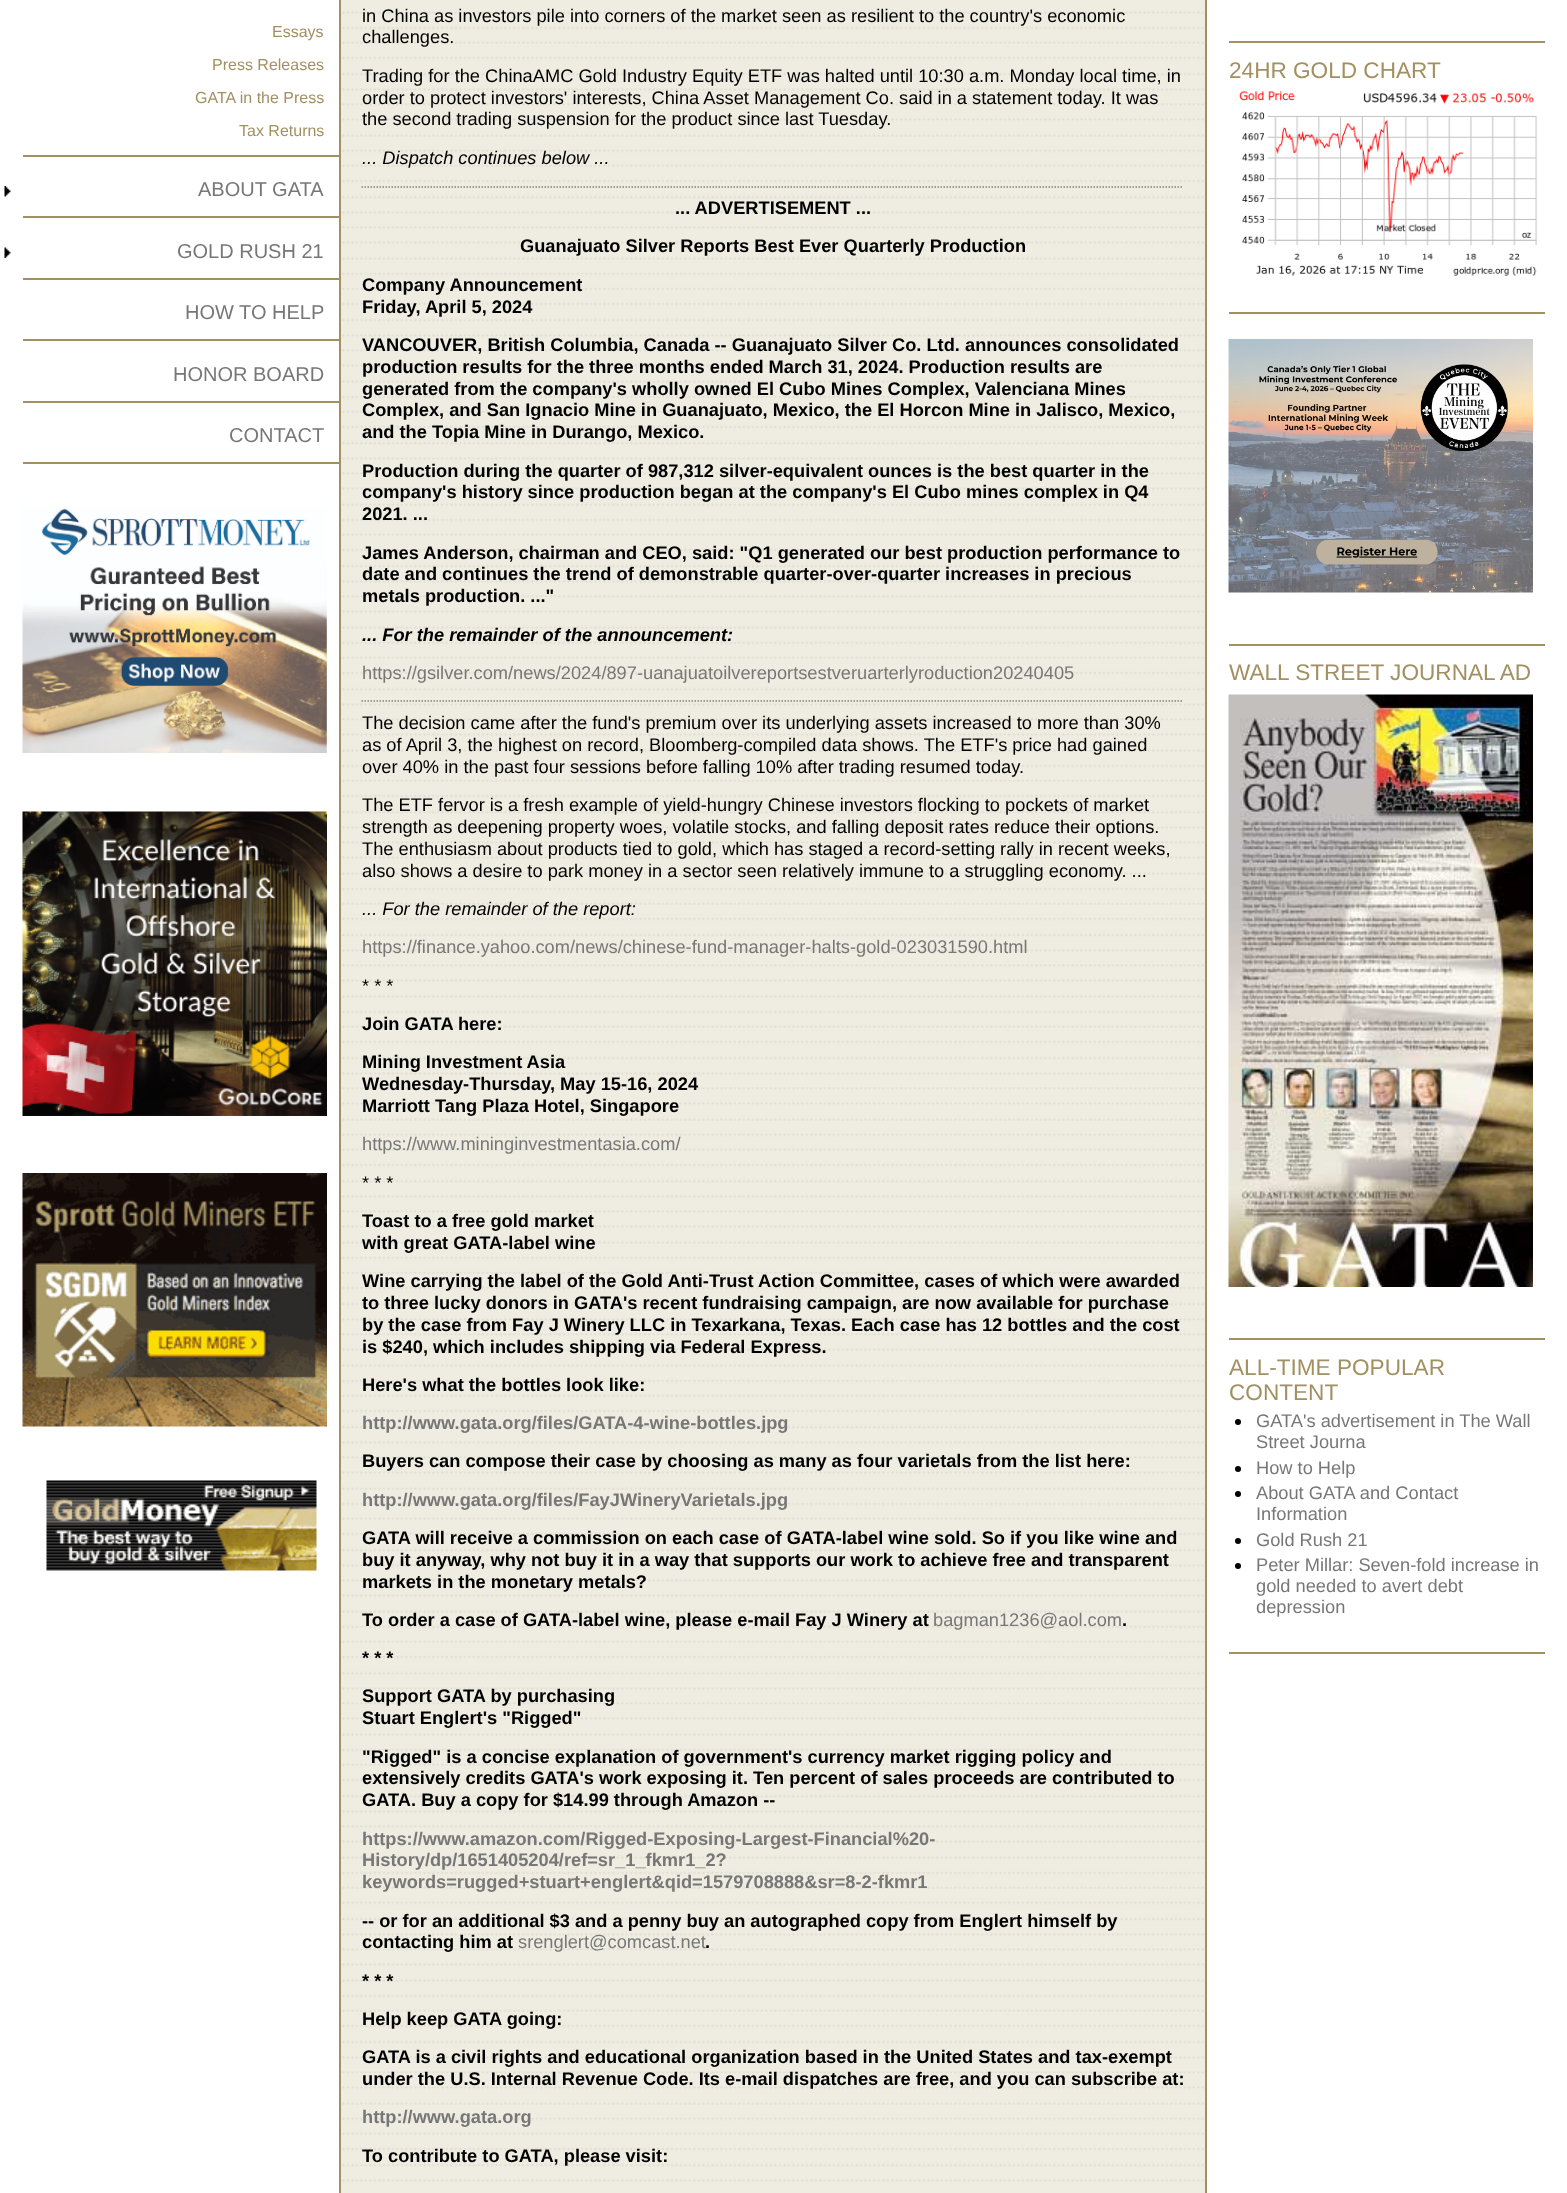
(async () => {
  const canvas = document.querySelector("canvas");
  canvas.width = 1567;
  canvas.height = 2193;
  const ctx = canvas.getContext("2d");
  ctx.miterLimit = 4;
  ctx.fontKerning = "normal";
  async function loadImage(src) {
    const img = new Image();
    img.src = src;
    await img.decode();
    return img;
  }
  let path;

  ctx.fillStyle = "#ffffff";
  ctx.fillRect(0, 0, 1567, 2193);
  ctx.fillStyle = "#a29061";
  ctx.fillRect(23, 155, 316, 2);
  ctx.fillRect(23, 216, 316, 2);
  ctx.drawImage(await loadImage("img/1.png"), 4, 186, 7, 11);
  ctx.fillRect(23, 278, 316, 2);
  ctx.drawImage(await loadImage("img/2.png"), 4, 247, 7, 11);
  for (const [x, y, w, h, color] of [
    [23, 339, 316, 2, "#a29061"],
    [23, 401, 316, 2, "#a29061"],
    [23, 462, 316, 2, "#a29061"],
  ]) {
    ctx.fillStyle = color;
    ctx.fillRect(x, y, w, h);
  }
  ctx.drawImage(await loadImage("img/3.png"), 22, 507, 305, 246);
  ctx.drawImage(await loadImage("img/4.png"), 22, 811, 305, 305);
  ctx.drawImage(await loadImage("img/5.png"), 22, 1173, 305, 254);
  ctx.drawImage(await loadImage("img/6.png"), 46, 1480, 271, 91);
  ctx.drawImage(await loadImage("img/7.png"), 341, 0, 864, 2193);
  ctx.fillRect(1205, 0, 2, 2193);
  ctx.fillRect(339, 0, 2, 2193);
  path = new Path2D("M361.5 187H1183.5");
  ctx.strokeStyle = "#808080";
  ctx.lineWidth = 1.5;
  ctx.setLineDash([1.5, 1.5]);
  ctx.stroke(path);
  path = new Path2D("M361.5 701H1183.5");
  ctx.stroke(path);
  ctx.fillRect(1229, 41, 316, 2);
  ctx.fillRect(1229, 312, 316, 2);
  ctx.drawImage(await loadImage("img/8.png"), 1239, 91, 299, 185);
  ctx.fillRect(1229, 644, 316, 2);
  ctx.drawImage(await loadImage("img/9.png"), 1228, 339, 305, 254);
  ctx.fillRect(1229, 1338, 316, 2);
  ctx.drawImage(await loadImage("img/10.png"), 1228, 694, 305, 593);
  ctx.fillRect(1229, 1652, 316, 2);
  ctx.fillStyle = "#000000";
  ctx.beginPath();
  ctx.arc(1238, 1422, 3, 0, Math.PI * 2);
  ctx.fill();
  ctx.beginPath();
  ctx.arc(1238, 1469, 3, 0, Math.PI * 2);
  ctx.fill();
  ctx.beginPath();
  ctx.arc(1238, 1494, 3, 0, Math.PI * 2);
  ctx.fill();
  ctx.beginPath();
  ctx.arc(1238, 1541, 3, 0, Math.PI * 2);
  ctx.fill();
  ctx.beginPath();
  ctx.arc(1238, 1566, 3, 0, Math.PI * 2);
  ctx.fill();
  ctx.font = "16px Liberation Sans";
  ctx.fillStyle = "#a29061";
  for (const [text, x, y] of [
    ["Essays", 272, 37],
    ["Press Releases", 212, 70],
    ["GATA in the Press", 195, 103],
    ["Tax Returns", 239, 136],
  ]) {
    ctx.fillText(text, x, y);
  }
  ctx.font = "20px Liberation Sans";
  ctx.fillStyle = "#777777";
  for (const [text, x, y] of [
    ["ABOUT GATA", 198, 196],
    ["GOLD RUSH 21", 177, 258],
    ["HOW TO HELP", 185, 319],
    ["HONOR BOARD", 173, 381],
    ["CONTACT", 229, 442],
  ]) {
    ctx.fillText(text, x, y);
  }
  ctx.font = "18.25px Liberation Sans";
  ctx.fillStyle = "#000000";
  for (const [text, x, y] of [
    ["in China as investors pile into corners of the market seen as resilient to the country's economic", 362, 22],
    ["challenges.", 362, 43],
    ["Trading for the ChinaAMC Gold Industry Equity ETF was halted until 10:30 a.m. Monday local time, in", 362, 82],
    ["order to protect investors' interests, China Asset Management Co. said in a statement today. It was", 362, 104],
    ["the second trading suspension for the product since last Tuesday.", 362, 125],
  ]) {
    ctx.fillText(text, x, y);
  }
  ctx.font = "italic 18.25px Liberation Sans";
  ctx.fillText("... Dispatch continues below ...", 362, 164);
  ctx.font = "bold 18.25px Liberation Sans";
  for (const [text, x, y] of [
    ["... ADVERTISEMENT ...", 675, 214],
    ["Guanajuato Silver Reports Best Ever Quarterly Production", 520, 252],
    ["Company Announcement", 362, 291],
    ["Friday, April 5, 2024", 362, 313],
    ["VANCOUVER, British Columbia, Canada -- Guanajuato Silver Co. Ltd. announces consolidated", 362, 351],
    ["production results for the three months ended March 31, 2024. Production results are", 362, 373],
    ["generated from the company's wholly owned El Cubo Mines Complex, Valenciana Mines", 362, 395],
    ["Complex, and San Ignacio Mine in Guanajuato, Mexico, the El Horcon Mine in Jalisco, Mexico,", 362, 416],
    ["and the Topia Mine in Durango, Mexico.", 362, 438],
    ["Production during the quarter of 987,312 silver-equivalent ounces is the best quarter in the", 362, 477],
    ["company's history since production began at the company's El Cubo mines complex in Q4", 362, 498],
    ["2021. ...", 362, 520],
    ["James Anderson, chairman and CEO, said: \"Q1 generated our best production performance to", 362, 559],
    ["date and continues the trend of demonstrable quarter-over-quarter increases in precious", 362, 580],
    ["metals production. ...\"", 362, 602],
  ]) {
    ctx.fillText(text, x, y);
  }
  ctx.font = "italic bold 18.25px Liberation Sans";
  ctx.fillText("... For the remainder of the announcement:", 362, 641);
  ctx.font = "18.25px Liberation Sans";
  ctx.fillStyle = "#777777";
  ctx.fillText("https://gsilver.com/news/2024/897-uanajuatoilvereportsestveruarterlyroduction20240405", 362, 679);
  ctx.fillStyle = "#000000";
  for (const [text, x, y] of [
    ["The decision came after the fund's premium over its underlying assets increased to more than 30%", 362, 729],
    ["as of April 3, the highest on record, Bloomberg-compiled data shows. The ETF's price had gained", 362, 751],
    ["over 40% in the past four sessions before falling 10% after trading resumed today.", 362, 773],
    ["The ETF fervor is a fresh example of yield-hungry Chinese investors flocking to pockets of market", 362, 811],
    ["strength as deepening property woes, volatile stocks, and falling deposit rates reduce their options.", 362, 833],
    ["The enthusiasm about products tied to gold, which has staged a record-setting rally in recent weeks,", 362, 855],
    ["also shows a desire to park money in a sector seen relatively immune to a struggling economy. ...", 362, 877],
  ]) {
    ctx.fillText(text, x, y);
  }
  ctx.font = "italic 18.25px Liberation Sans";
  ctx.fillText("... For the remainder of the report:", 362, 915);
  ctx.font = "18.25px Liberation Sans";
  ctx.fillStyle = "#777777";
  ctx.fillText("https://finance.yahoo.com/news/chinese-fund-manager-halts-gold-023031590.html", 362, 953);
  ctx.fillStyle = "#000000";
  ctx.fillText("* * *", 362, 992);
  ctx.font = "bold 18.25px Liberation Sans";
  for (const [text, x, y] of [
    ["Join GATA here:", 362, 1030],
    ["Mining Investment Asia", 362, 1068],
    ["Wednesday-Thursday, May 15-16, 2024", 362, 1090],
    ["Marriott Tang Plaza Hotel, Singapore", 362, 1112],
  ]) {
    ctx.fillText(text, x, y);
  }
  ctx.font = "18.25px Liberation Sans";
  ctx.fillStyle = "#777777";
  ctx.fillText("https://www.mininginvestmentasia.com/", 362, 1150);
  ctx.fillStyle = "#000000";
  ctx.fillText("* * *", 362, 1189);
  ctx.font = "bold 18.25px Liberation Sans";
  for (const [text, x, y] of [
    ["Toast to a free gold market", 362, 1227],
    ["with great GATA-label wine", 362, 1249],
    ["Wine carrying the label of the Gold Anti-Trust Action Committee, cases of which were awarded", 362, 1287],
    ["to three lucky donors in GATA's recent fundraising campaign, are now available for purchase", 362, 1309],
    ["by the case from Fay J Winery LLC in Texarkana, Texas. Each case has 12 bottles and the cost", 362, 1331],
    ["is $240, which includes shipping via Federal Express.", 362, 1353],
    ["Here's what the bottles look like:", 362, 1391],
  ]) {
    ctx.fillText(text, x, y);
  }
  ctx.fillStyle = "#777777";
  ctx.fillText("http://www.gata.org/files/GATA-4-wine-bottles.jpg", 362, 1429);
  ctx.fillStyle = "#000000";
  ctx.fillText("Buyers can compose their case by choosing as many as four varietals from the list here:", 362, 1467);
  ctx.fillStyle = "#777777";
  ctx.fillText("http://www.gata.org/files/FayJWineryVarietals.jpg", 362, 1506);
  ctx.fillStyle = "#000000";
  for (const [text, x, y] of [
    ["GATA will receive a commission on each case of GATA-label wine sold. So if you like wine and", 362, 1544],
    ["buy it anyway, why not buy it in a way that supports our work to achieve free and transparent", 362, 1566],
    ["markets in the monetary metals?", 362, 1588],
    ["To order a case of GATA-label wine, please e-mail Fay J Winery at", 362, 1626],
  ]) {
    ctx.fillText(text, x, y);
  }
  ctx.font = "18.25px Liberation Sans";
  ctx.fillStyle = "#777777";
  ctx.fillText("bagman1236@aol.com", 933, 1626);
  ctx.font = "bold 18.25px Liberation Sans";
  ctx.fillStyle = "#000000";
  for (const [text, x, y] of [
    [".", 1122, 1626],
    ["* * *", 362, 1664],
    ["Support GATA by purchasing", 362, 1702],
    ["Stuart Englert's \"Rigged\"", 362, 1724],
    ["\"Rigged\" is a concise explanation of government's currency market rigging policy and", 362, 1763],
    ["extensively credits GATA's work exposing it. Ten percent of sales proceeds are contributed to", 362, 1784],
    ["GATA. Buy a copy for $14.99 through Amazon --", 362, 1806],
  ]) {
    ctx.fillText(text, x, y);
  }
  ctx.fillStyle = "#777777";
  for (const [text, x, y] of [
    ["https://www.amazon.com/Rigged-Exposing-Largest-Financial%20-", 362, 1845],
    ["History/dp/1651405204/ref=sr_1_fkmr1_2?", 362, 1866],
    ["keywords=rugged+stuart+englert&qid=1579708888&sr=8-2-fkmr1", 362, 1888],
  ]) {
    ctx.fillText(text, x, y);
  }
  ctx.fillStyle = "#000000";
  ctx.fillText("-- or for an additional $3 and a penny buy an autographed copy from Englert himself by", 362, 1927);
  ctx.fillText("contacting him at", 362, 1948);
  ctx.font = "18.25px Liberation Sans";
  ctx.fillStyle = "#777777";
  ctx.fillText("srenglert@comcast.net", 518, 1948);
  ctx.font = "bold 18.25px Liberation Sans";
  ctx.fillStyle = "#000000";
  for (const [text, x, y] of [
    [".", 705, 1948],
    ["* * *", 362, 1987],
    ["Help keep GATA going:", 362, 2025],
    ["GATA is a civil rights and educational organization based in the United States and tax-exempt", 362, 2063],
    ["under the U.S. Internal Revenue Code. Its e-mail dispatches are free, and you can subscribe at:", 362, 2085],
  ]) {
    ctx.fillText(text, x, y);
  }
  ctx.fillStyle = "#777777";
  ctx.fillText("http://www.gata.org", 362, 2123);
  ctx.fillStyle = "#000000";
  ctx.fillText("To contribute to GATA, please visit:", 362, 2162);
  ctx.font = "22.6px Liberation Sans";
  ctx.fillStyle = "#a29061";
  for (const [text, x, y] of [
    ["24HR GOLD CHART", 1229, 78],
    ["WALL STREET JOURNAL AD", 1229, 680],
    ["ALL-TIME POPULAR", 1229, 1375],
    ["CONTENT", 1229, 1400],
  ]) {
    ctx.fillText(text, x, y);
  }
  ctx.font = "18.25px Liberation Sans";
  ctx.fillStyle = "#777777";
  for (const [text, x, y] of [
    ["GATA's advertisement in The Wall", 1256, 1427],
    ["Street Journa", 1256, 1448],
    ["How to Help", 1256, 1474],
    ["About GATA and Contact", 1256, 1499],
    ["Information", 1256, 1520],
    ["Gold Rush 21", 1256, 1546],
    ["Peter Millar: Seven-fold increase in", 1256, 1571],
    ["gold needed to avert debt", 1256, 1592],
    ["depression", 1256, 1613],
  ]) {
    ctx.fillText(text, x, y);
  }
})();
